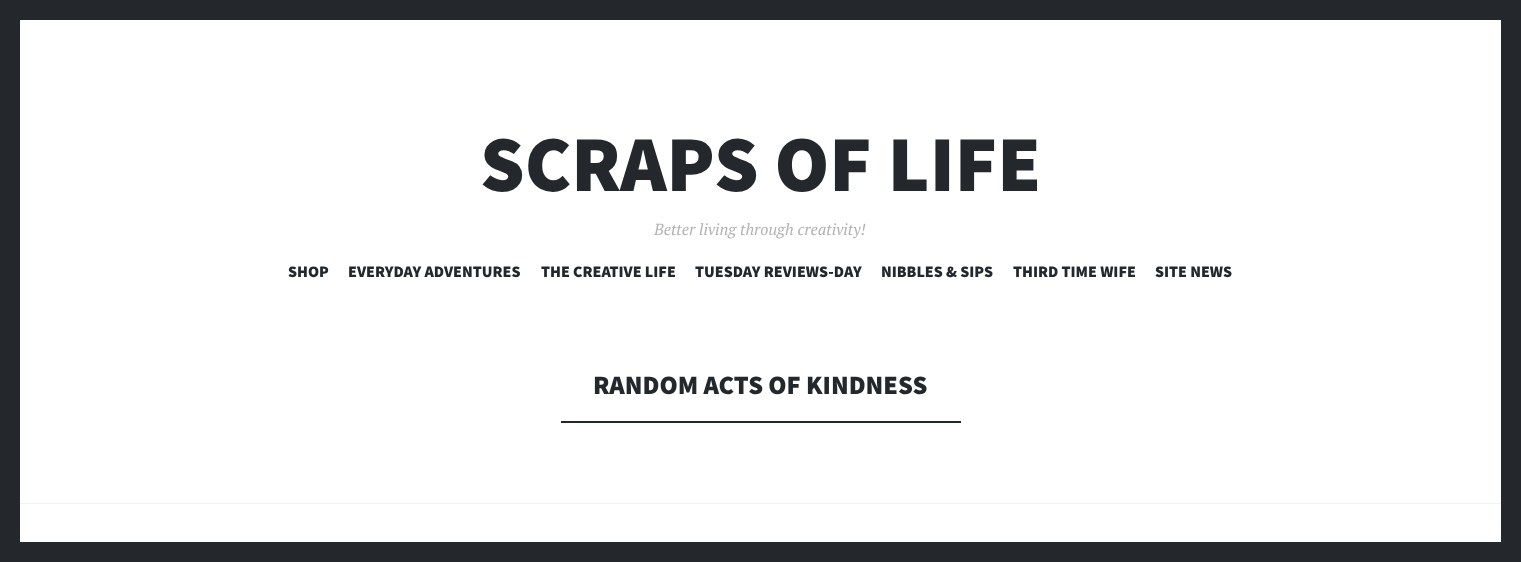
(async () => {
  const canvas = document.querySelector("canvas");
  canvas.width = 1521;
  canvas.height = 562;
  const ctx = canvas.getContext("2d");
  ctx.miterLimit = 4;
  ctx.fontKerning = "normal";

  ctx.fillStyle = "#24282d";
  ctx.fillRect(0, 0, 1521, 562);
  for (const [x, y, w, h, color] of [
    [20, 20, 1481, 522, "#ffffff"],
    [561, 421, 400, 2, "#24282d"],
    [20, 503, 1481, 1, "#f1f2f3"],
  ]) {
    ctx.fillStyle = color;
    ctx.fillRect(x, y, w, h);
  }
  ctx.font = "900 79.25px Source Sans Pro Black";
  ctx.fillStyle = "#24282d";
  ctx.fillText("SCRAPS OF LIFE", 480, 191);
  ctx.font = "italic 16px PT Serif";
  ctx.fillStyle = "#b1b2b3";
  ctx.fillText("Better living through creativity!", 654, 235);
  ctx.font = "900 16px Source Sans Pro Black";
  ctx.fillStyle = "#24282d";
  for (const [text, x, y] of [
    ["SHOP", 288, 277],
    ["EVERYDAY ADVENTURES", 348, 277],
    ["THE CREATIVE LIFE", 541, 277],
    ["TUESDAY REVIEWS-DAY", 695, 277],
    ["NIBBLES & SIPS", 881, 277],
    ["THIRD TIME WIFE", 1013, 277],
    ["SITE NEWS", 1155, 277],
  ]) {
    ctx.fillText(text, x, y);
  }
  ctx.font = "900 26.4px Source Sans Pro Black";
  ctx.fillText("RANDOM ACTS OF KINDNESS", 593, 394);
})();
